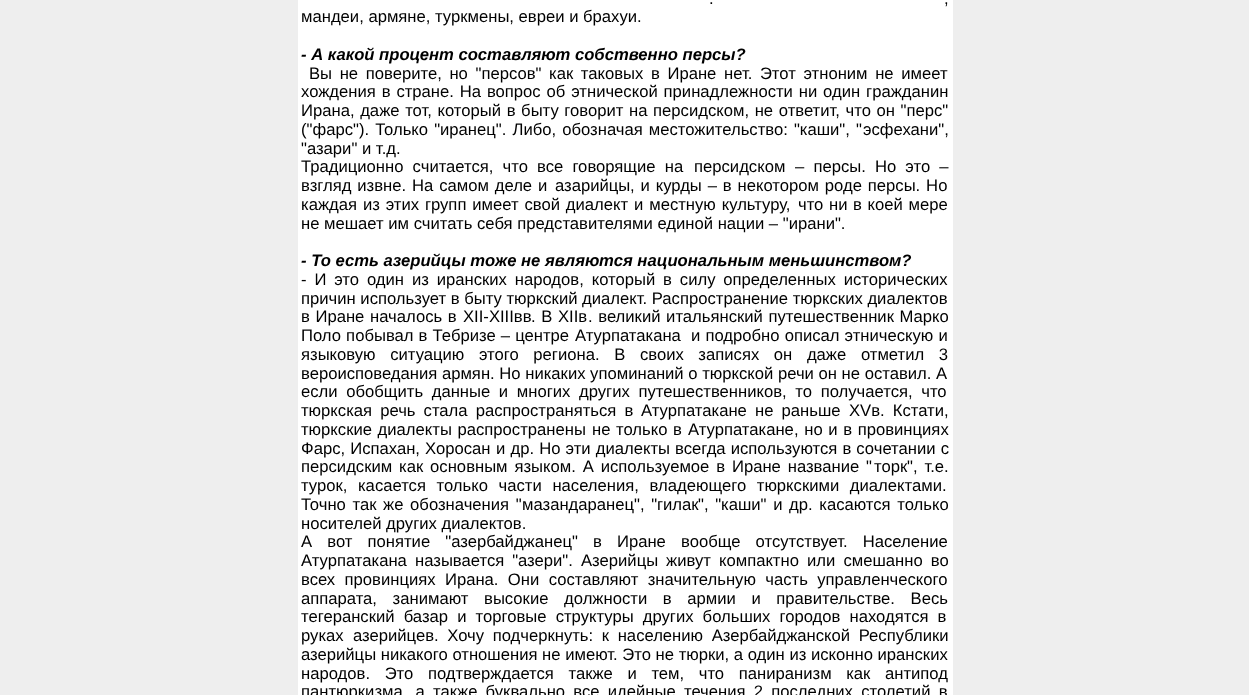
(async () => {
  const canvas = document.querySelector("canvas");
  canvas.width = 1249;
  canvas.height = 695;
  const ctx = canvas.getContext("2d");
  ctx.miterLimit = 4;
  ctx.fontKerning = "normal";

  ctx.fillStyle = "#eeeeee";
  ctx.fillRect(0, 0, 1249, 695);
  ctx.fillStyle = "#ffffff";
  ctx.fillRect(298, 0, 655, 695);
  ctx.wordSpacing = "5px";
  ctx.font = "16.65px Liberation Sans";
  ctx.fillStyle = "#000000";
  ctx.fillText(".", 709, 4);
  ctx.fillText(",", 944, 4);
  ctx.wordSpacing = "0px";
  ctx.fillText("мандеи, армяне, туркмены, евреи и брахуи.", 301, 22);
  ctx.font = "italic bold 16.65px Liberation Sans";
  ctx.fillText("- А какой процент составляют собственно персы?", 301, 60);
  ctx.wordSpacing = "3px";
  ctx.font = "16.65px Liberation Sans";
  ctx.fillText("Вы не поверите, но \"персов\" как таковых в Иране нет. Этот этноним не имеет", 309, 79);
  ctx.wordSpacing = "1.25px";
  ctx.fillText("хождения в стране. На вопрос об этнической принадлежности ни один гражданин", 301, 97);
  ctx.wordSpacing = "1px";
  ctx.fillText("Ирана, даже тот, который в быту говорит на персидском, не ответит, что он \"перс\"", 301, 116);
  ctx.wordSpacing = "1.5px";
  ctx.fillText("(\"фарс\"). Только \"иранец\". Либо, обозначая местожительство: \"каши\", \"", 301, 135);
  ctx.wordSpacing = "0px";
  ctx.fillText("эсфехани\",", 863, 135);
  ctx.fillText("\"азари\" и т.д.", 301, 154);
  ctx.wordSpacing = "4.5px";
  ctx.fillText("Традиционно считается, что все говорящие на", 301, 172);
  ctx.wordSpacing = "0px";
  ctx.fillText("персидском", 694, 172);
  ctx.wordSpacing = "4.5px";
  ctx.fillText("– персы. Но это –", 795, 172);
  ctx.wordSpacing = "1.25px";
  ctx.fillText("взгляд извне. На самом деле и", 301, 191);
  ctx.wordSpacing = "0px";
  ctx.fillText("азарийцы", 555, 191);
  ctx.wordSpacing = "1.25px";
  ctx.fillText(", и курды – в некотором роде персы. Но", 630, 191);
  ctx.fillText("каждая из этих групп имеет свой диалект и местную культуру,", 301, 210);
  ctx.wordSpacing = "0px";
  ctx.fillText("что", 798, 210);
  ctx.wordSpacing = "1px";
  ctx.fillText("ни в коей мере", 829, 210);
  ctx.wordSpacing = "0px";
  ctx.fillText("не мешает им считать себя представителями единой нации – \"ирани\".", 301, 229);
  ctx.font = "italic bold 16.65px Liberation Sans";
  ctx.fillText("- То есть азерийцы тоже не являются национальным меньшинством?", 301, 266);
  ctx.wordSpacing = "3.25px";
  ctx.font = "16.65px Liberation Sans";
  ctx.fillText("- И это один из иранских народов, который в силу определенных исторических", 301, 285);
  ctx.wordSpacing = "0px";
  ctx.fillText("причин использует в быту тюркский диалект. Распространение тюркских диалектов", 301, 304);
  ctx.wordSpacing = "1px";
  ctx.fillText("в Иране началось в", 301, 322);
  ctx.wordSpacing = "0px";
  ctx.fillText("XII-XIIIвв", 463, 322);
  ctx.wordSpacing = "1px";
  ctx.fillText(". В", 531, 322);
  ctx.wordSpacing = "0px";
  ctx.fillText("XIIв", 558, 322);
  ctx.wordSpacing = "1px";
  ctx.fillText(". великий итальянский путешественник Марко", 588, 322);
  ctx.wordSpacing = "0.5px";
  ctx.fillText("Поло побывал в Тебризе – центре", 301, 341);
  ctx.wordSpacing = "0px";
  ctx.fillText("Атурпатакана", 575, 341);
  ctx.wordSpacing = "0.5px";
  ctx.fillText("и подробно описал этническую и", 691, 341);
  ctx.wordSpacing = "10px";
  ctx.fillText("языковую ситуацию этого региона. В своих записях он даже отметил 3", 301, 360);
  ctx.wordSpacing = "0px";
  ctx.fillText("вероисповедания армян. Но никаких упоминаний о тюркской речи он не оставил. А", 301, 379);
  ctx.wordSpacing = "4px";
  ctx.fillText("если обобщить данные и многих других путешественников, то получается, что", 301, 397);
  ctx.wordSpacing = "3.5px";
  ctx.fillText("тюркская речь стала распространяться в", 301, 416);
  ctx.wordSpacing = "0px";
  ctx.fillText("Атурпатакане", 641, 416);
  ctx.wordSpacing = "3.5px";
  ctx.fillText("не раньше", 755, 416);
  ctx.wordSpacing = "0px";
  ctx.fillText("XVв", 849, 416);
  ctx.wordSpacing = "3.5px";
  ctx.fillText(". Кстати,", 880, 416);
  ctx.wordSpacing = "1px";
  ctx.fillText("тюркские диалекты распространены", 301, 435);
  ctx.wordSpacing = "0px";
  ctx.fillText("не", 592, 435);
  ctx.wordSpacing = "1px";
  ctx.fillText("только в", 616, 435);
  ctx.wordSpacing = "0px";
  ctx.fillText("Атурпатакане", 688, 435);
  ctx.wordSpacing = "1px";
  ctx.fillText(", но и в провинциях", 794, 435);
  ctx.wordSpacing = "0.5px";
  ctx.fillText("Фарс, Испахан,", 301, 454);
  ctx.wordSpacing = "0px";
  ctx.fillText("Хоросан", 425, 454);
  ctx.wordSpacing = "0.5px";
  ctx.fillText("и др. Но эти диалекты всегда используются в сочетании с", 496, 454);
  ctx.wordSpacing = "2.25px";
  ctx.fillText("персидским как основным языком. А используемое в Иране название \"", 301, 472);
  ctx.wordSpacing = "0px";
  ctx.fillText("торк", 874, 472);
  ctx.wordSpacing = "2.25px";
  ctx.fillText("\", т.е.", 907, 472);
  ctx.wordSpacing = "6px";
  ctx.fillText("турок, касается только части населения, владеющего тюркскими диалектами.", 301, 491);
  ctx.wordSpacing = "2px";
  ctx.fillText("Точно так же обозначения \"", 301, 510);
  ctx.wordSpacing = "0px";
  ctx.fillText("мазандаранец", 522, 510);
  ctx.wordSpacing = "2px";
  ctx.fillText("\", \"", 634, 510);
  ctx.wordSpacing = "0px";
  ctx.fillText("гилак", 657, 510);
  ctx.wordSpacing = "2px";
  ctx.fillText("\", \"каши\" и др. касаются только", 698, 510);
  ctx.wordSpacing = "0px";
  ctx.fillText("носителей других диалектов.", 301, 529);
  ctx.wordSpacing = "10.5px";
  ctx.fillText("А вот понятие \"азербайджанец\" в Иране вообще отсутствует. Население", 301, 547);
  ctx.wordSpacing = "0px";
  ctx.fillText("Атурпатакана", 301, 566);
  ctx.wordSpacing = "3.5px";
  ctx.fillText("называется \"", 415, 566);
  ctx.wordSpacing = "0px";
  ctx.fillText("азери\".", 518, 566);
  ctx.fillText("Азерийцы", 581, 566);
  ctx.wordSpacing = "3.5px";
  ctx.fillText("живут компактно или смешанно во", 666, 566);
  ctx.wordSpacing = "4.75px";
  ctx.fillText("всех провинциях Ирана. Они составляют значительную часть управленческого", 301, 585);
  ctx.wordSpacing = "11px";
  ctx.fillText("аппарата, занимают высокие должности в армии и правительстве. Весь", 301, 604);
  ctx.wordSpacing = "4.5px";
  ctx.fillText("тегеранский базар и торговые структуры других больших городов находятся в", 301, 622);
  ctx.wordSpacing = "0px";
  ctx.fillText("руках", 301, 641);
  ctx.fillText("азерийцев", 353, 641);
  ctx.wordSpacing = "4px";
  ctx.fillText(". Хочу подчеркнуть: к населению Азербайджанской Республики", 434, 641);
  ctx.wordSpacing = "0px";
  ctx.fillText("азерийцы никакого отношения не имеют. Это не тюрки, а один из исконно иранских", 301, 660);
  ctx.wordSpacing = "10px";
  ctx.fillText("народов. Это подтверждается также и тем, что паниранизм как антипод", 301, 679);
  ctx.wordSpacing = "3.6px";
  ctx.fillText("пантюркизма, а также буквально все идейные течения 2 последних столетий в", 301, 697);
})();
